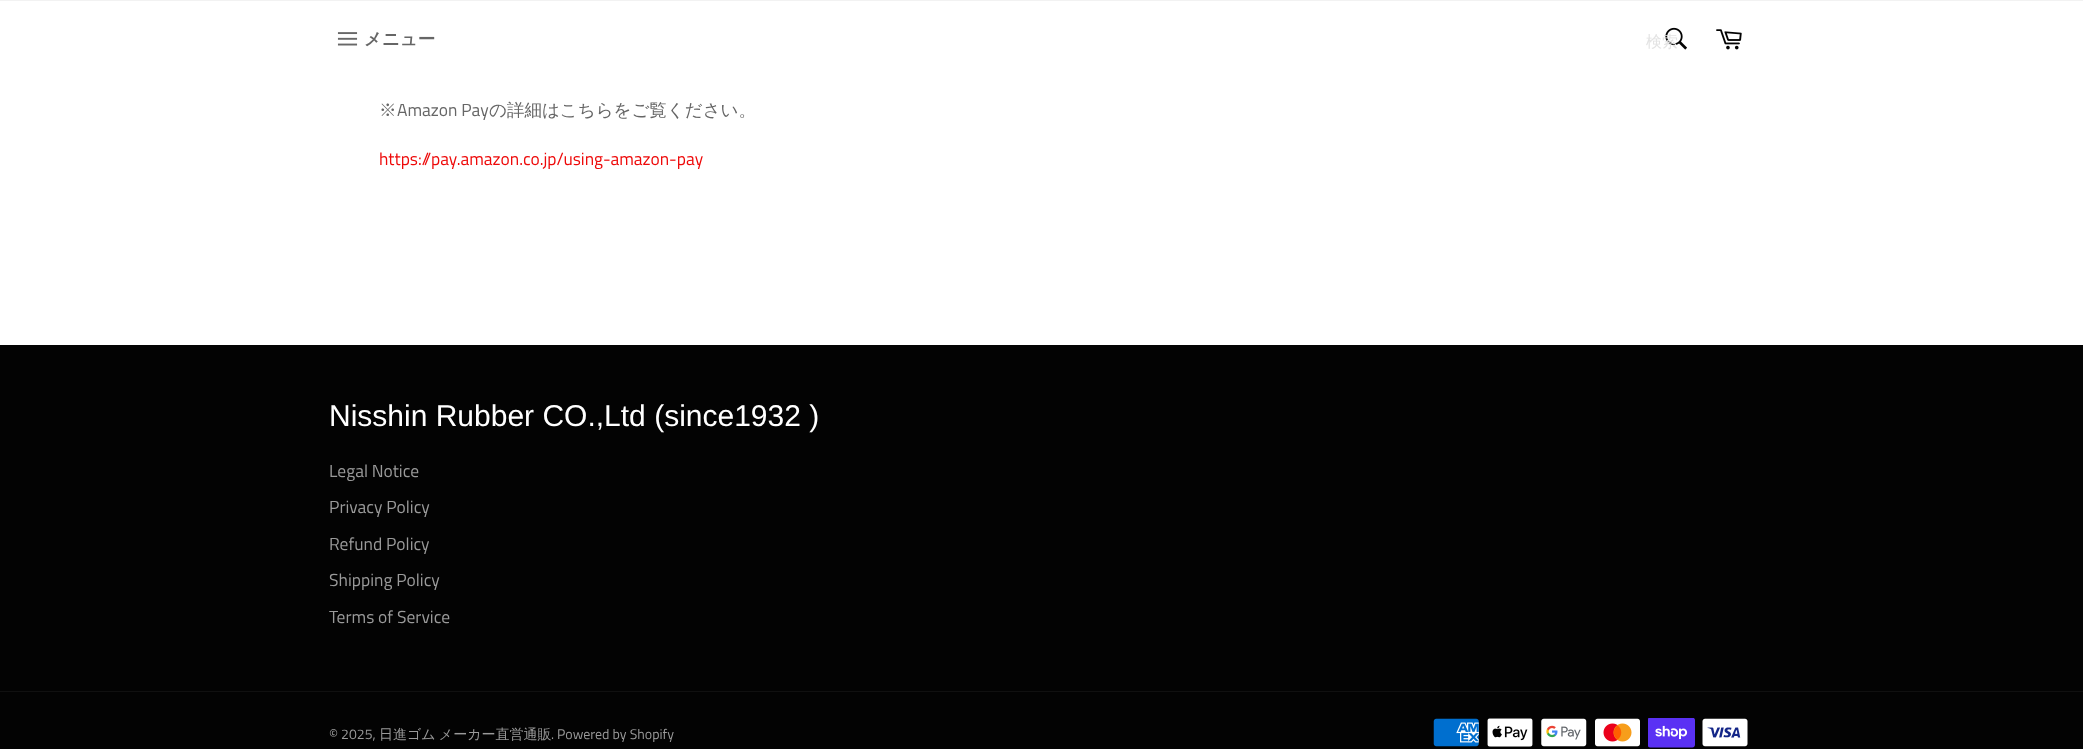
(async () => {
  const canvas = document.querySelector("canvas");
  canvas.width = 2083;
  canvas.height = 749;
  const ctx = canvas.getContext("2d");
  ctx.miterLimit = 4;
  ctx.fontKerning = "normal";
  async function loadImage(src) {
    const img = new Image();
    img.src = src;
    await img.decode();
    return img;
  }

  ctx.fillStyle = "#ffffff";
  ctx.fillRect(0, 0, 2083, 749);
  ctx.fillStyle = "#f2f2f2";
  ctx.fillRect(0, 0, 2083, 1);
  ctx.drawImage(await loadImage("img/1.png"), 337, 32, 21, 14);
  ctx.drawImage(await loadImage("img/2.png"), 1665, 27, 22, 23);
  ctx.drawImage(await loadImage("img/3.png"), 1716, 29, 26, 21);
  ctx.fillStyle = "#030303";
  ctx.fillRect(0, 345, 2083, 404);
  ctx.fillStyle = "#101010";
  ctx.fillRect(0, 691, 2083, 1);
  ctx.drawImage(await loadImage("img/4.png"), 1433, 718, 46, 29);
  ctx.drawImage(await loadImage("img/5.png"), 1487, 718, 46, 29);
  ctx.drawImage(await loadImage("img/6.png"), 1541, 718, 46, 29);
  ctx.drawImage(await loadImage("img/7.png"), 1595, 718, 45, 29);
  ctx.drawImage(await loadImage("img/8.png"), 1648, 718, 47, 30);
  ctx.drawImage(await loadImage("img/9.png"), 1702, 718, 46, 29);
  ctx.font = "bold 17.5px WenQuanYi Zen Hei";
  ctx.fillStyle = "#666666";
  ctx.fillText("メニュー", 364, 45);
  ctx.font = "500 16px WenQuanYi Zen Hei";
  ctx.fillStyle = "#e3e3e3";
  ctx.fillText("検索", 1646, 47);
  ctx.font = "500 17.5px WenQuanYi Zen Hei";
  ctx.fillStyle = "#666666";
  ctx.fillText("※", 379, 116);
  ctx.font = "17.5px Titillium Web";
  ctx.fillText("Amazon Pay", 397, 116);
  ctx.font = "500 17.5px WenQuanYi Zen Hei";
  ctx.fillText("の詳細はこちらをご覧ください。", 489, 116);
  ctx.font = "17.5px Titillium Web";
  ctx.fillStyle = "#ee0909";
  ctx.fillText("https://pay.amazon.co.jp/using-amazon-pay", 379, 165);
  ctx.font = "30px Arimo";
  ctx.fillStyle = "#ffffff";
  ctx.fillText("Nisshin Rubber CO.,Ltd (since1932 )", 329, 426);
  ctx.font = "17.5px Titillium Web";
  ctx.fillStyle = "#9a9a9a";
  for (const [text, x, y] of [
    ["Legal Notice", 329, 477],
    ["Privacy Policy", 329, 513],
    ["Refund Policy", 329, 550],
    ["Shipping Policy", 329, 586],
    ["Terms of Service", 329, 623],
  ]) {
    ctx.fillText(text, x, y);
  }
  ctx.font = "14px Titillium Web";
  ctx.fillText("© 2025,", 329, 739);
  ctx.wordSpacing = "-1px";
  ctx.font = "500 14px WenQuanYi Zen Hei";
  ctx.fillText("日進ゴム メーカー直営通販", 379, 739);
  ctx.wordSpacing = "0px";
  ctx.font = "14px Titillium Web";
  ctx.fillText(". Powered by Shopify", 551, 739);
})();
